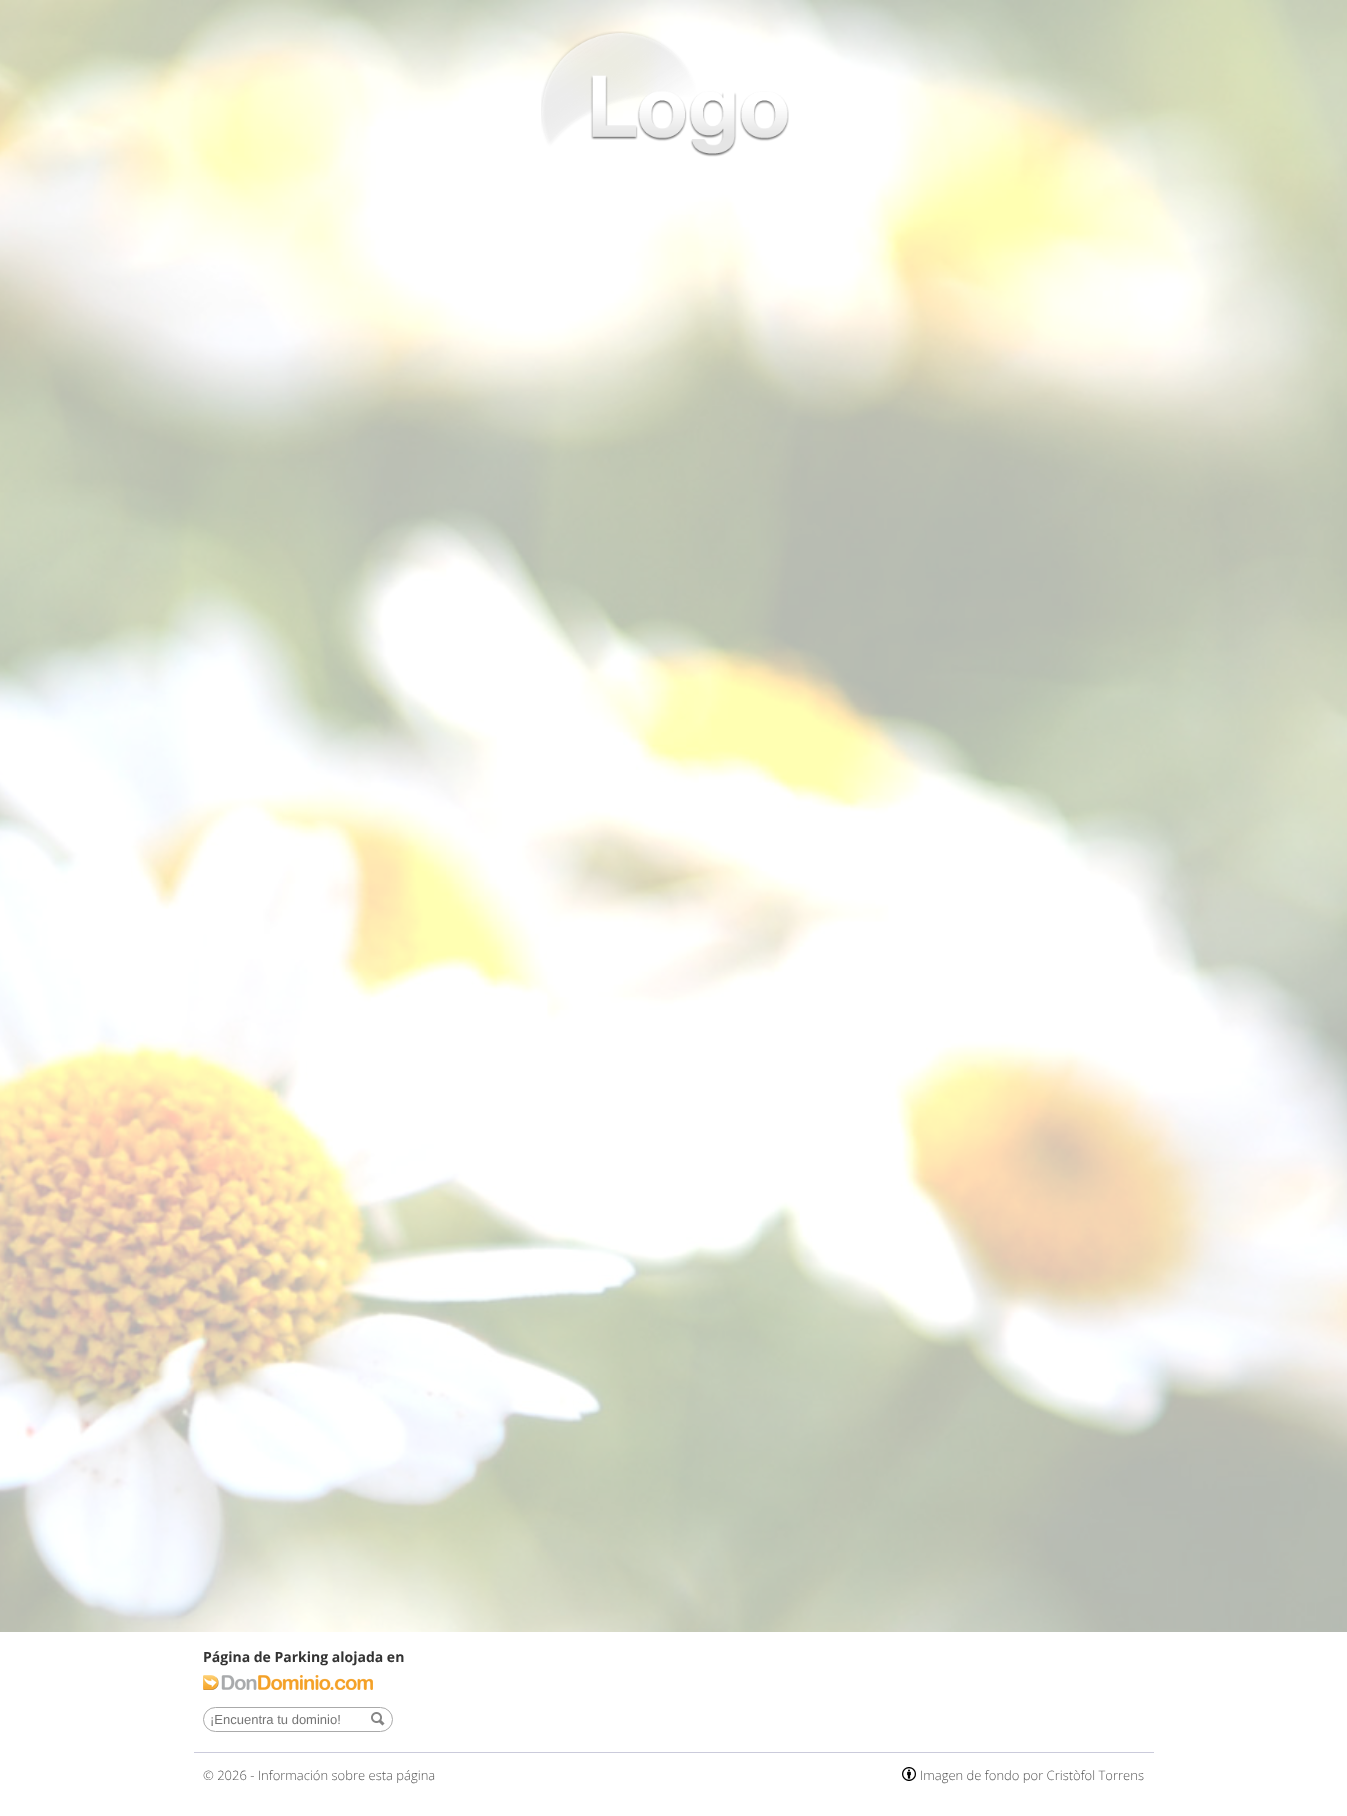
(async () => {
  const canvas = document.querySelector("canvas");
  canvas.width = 1347;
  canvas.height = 1816;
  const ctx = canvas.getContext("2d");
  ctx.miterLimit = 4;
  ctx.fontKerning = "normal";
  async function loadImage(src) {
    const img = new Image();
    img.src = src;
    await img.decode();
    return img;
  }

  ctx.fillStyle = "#ffffff";
  ctx.fillRect(0, 0, 1347, 1816);
  ctx.drawImage(await loadImage("img/1.png"), 0, 0, 1347, 1632);
  ctx.drawImage(await loadImage("img/2.png"), 541, 31, 248, 126);
  ctx.fillStyle = "#cbcbdb";
  ctx.fillRect(194, 1752, 960, 1);
  ctx.drawImage(await loadImage("img/3.png"), 203, 1675, 170, 15);
  ctx.beginPath();
  ctx.roundRect(203.5, 1707.5, 189, 24, 12);
  ctx.strokeStyle = "#aaaaaa";
  ctx.stroke();
  ctx.drawImage(await loadImage("img/4.png"), 371, 1712, 14, 14);
  ctx.drawImage(await loadImage("img/5.png"), 902, 1767, 14, 14);
  ctx.font = "bold 14px Open Sans";
  ctx.fillStyle = "#333333";
  ctx.fillText("Página de Parking alojada en", 203, 1662);
  ctx.font = "13px Liberation Sans";
  ctx.fillStyle = "#757575";
  ctx.fillText("¡Encuentra tu dominio!", 210, 1724);
  ctx.font = "300 13px Open Sans";
  ctx.fillStyle = "#555555";
  ctx.fillText("© 2026 - Información sobre esta página", 203, 1780);
  ctx.fillText("Imagen de fondo por Cristòfol Torrens", 920, 1780);
})();
